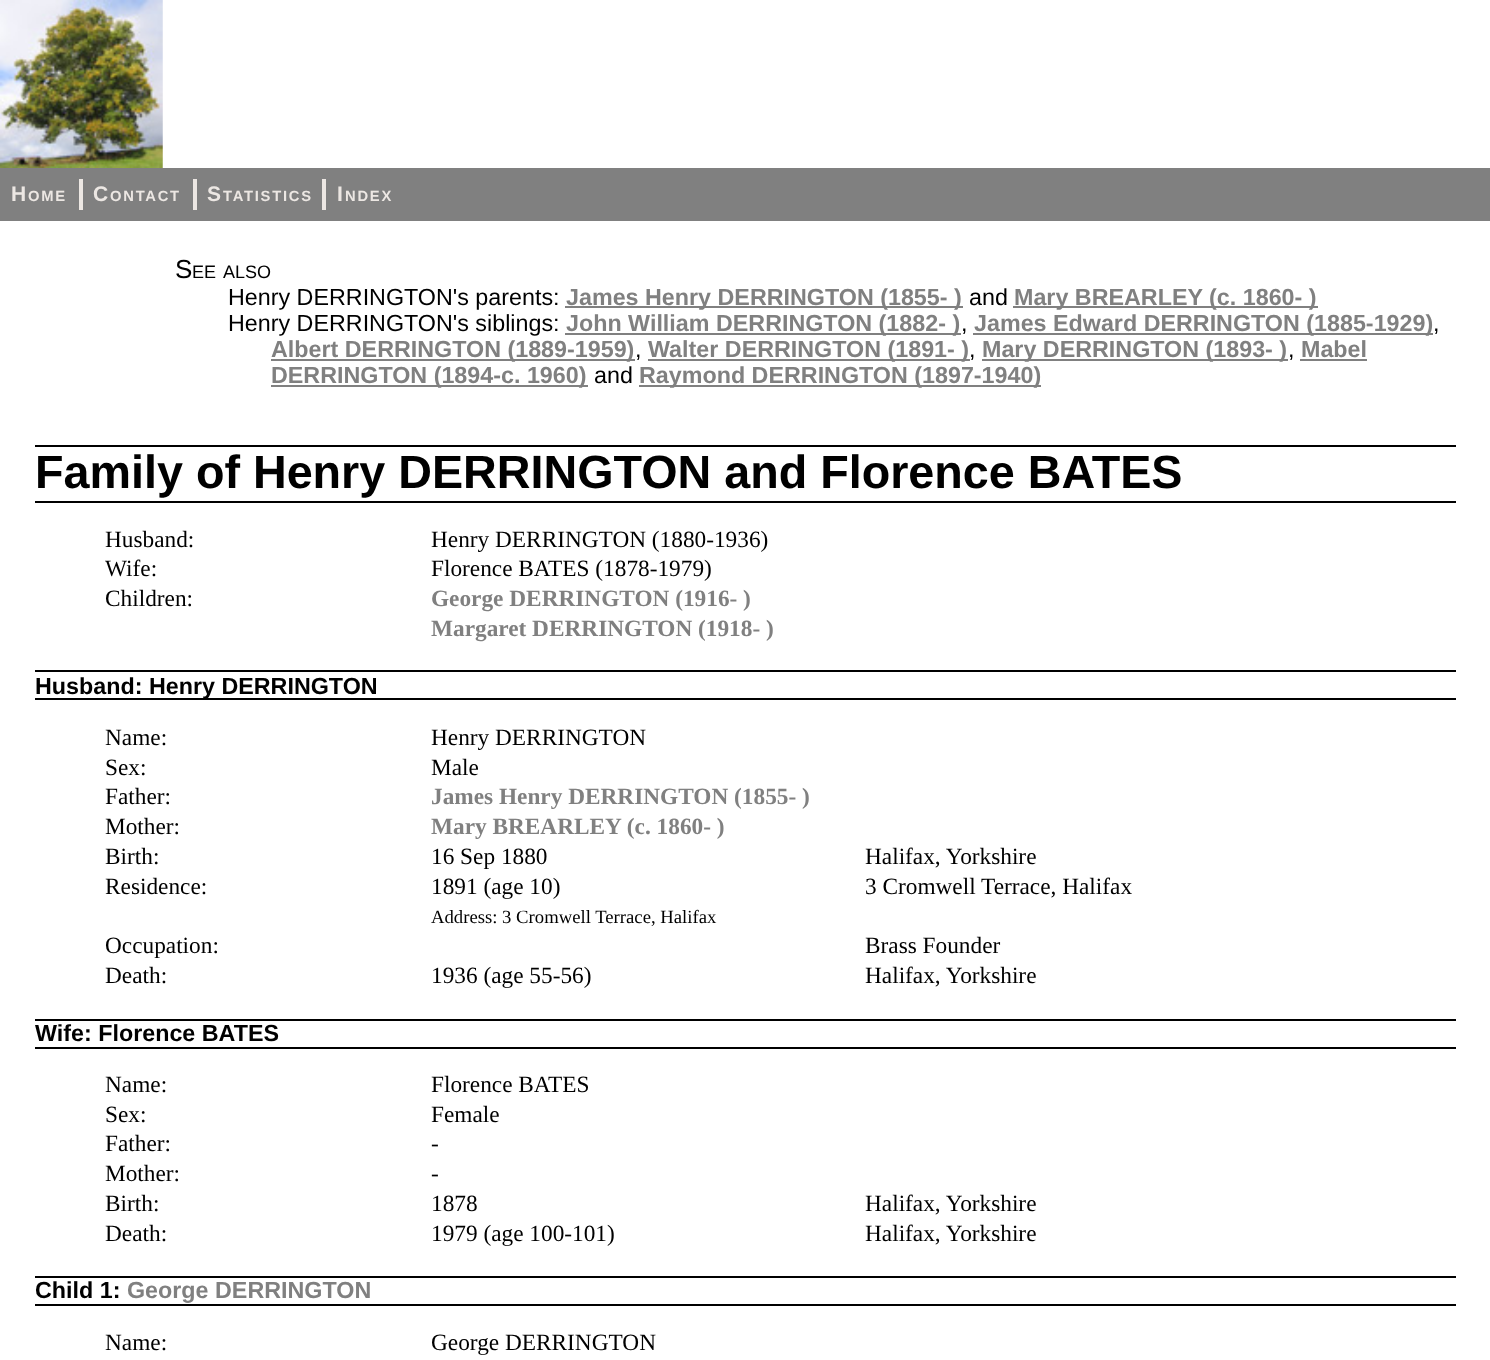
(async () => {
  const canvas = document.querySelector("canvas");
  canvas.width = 1490;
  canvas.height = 1360;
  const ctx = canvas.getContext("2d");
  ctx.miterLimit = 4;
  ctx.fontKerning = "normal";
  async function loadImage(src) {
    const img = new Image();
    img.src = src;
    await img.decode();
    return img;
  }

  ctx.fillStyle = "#ffffff";
  ctx.fillRect(0, 0, 1490, 1360);
  ctx.drawImage(await loadImage("img/1.png"), 0, 0, 163, 168);
  for (const [x, y, w, h, color] of [
    [0, 168, 1490, 53, "#808080"],
    [79, 179, 4, 31, "#ece7e3"],
    [193, 179, 4, 31, "#ece7e3"],
    [322, 179, 4, 31, "#ece7e3"],
    [565, 306, 398, 2, "#808080"],
    [1013, 306, 305, 2, "#808080"],
    [565, 333, 396, 2, "#808080"],
    [973, 333, 460, 2, "#808080"],
    [271, 359, 364, 2, "#808080"],
    [648, 359, 322, 2, "#808080"],
    [982, 359, 306, 2, "#808080"],
    [1300, 359, 67, 2, "#808080"],
    [271, 385, 317, 2, "#808080"],
    [639, 385, 402, 2, "#808080"],
    [35, 445, 1421, 2, "#000000"],
    [35, 501, 1421, 2, "#000000"],
    [35, 670, 1421, 2, "#000000"],
    [35, 698, 1421, 2, "#000000"],
    [35, 1019, 1421, 2, "#000000"],
    [35, 1047, 1421, 2, "#000000"],
    [35, 1276, 1421, 2, "#000000"],
    [35, 1304, 1421, 2, "#000000"],
  ]) {
    ctx.fillStyle = color;
    ctx.fillRect(x, y, w, h);
  }
  ctx.letterSpacing = "1.75px";
  ctx.font = "bold 21px Liberation Sans";
  ctx.fillStyle = "#ece7e3";
  ctx.fillText("H", 11, 201);
  ctx.font = "bold 14.75px Liberation Sans";
  ctx.fillText("OME", 28, 201);
  ctx.font = "bold 21px Liberation Sans";
  ctx.fillText("C", 93, 201);
  ctx.font = "bold 14.75px Liberation Sans";
  ctx.fillText("ONTACT", 110, 201);
  ctx.font = "bold 21px Liberation Sans";
  ctx.fillText("S", 207, 201);
  ctx.font = "bold 14.75px Liberation Sans";
  ctx.fillText("TATISTICS", 223, 201);
  ctx.font = "bold 21px Liberation Sans";
  ctx.fillText("I", 337, 201);
  ctx.font = "bold 14.75px Liberation Sans";
  ctx.fillText("NDEX", 345, 201);
  ctx.letterSpacing = "0px";
  ctx.font = "26px Liberation Sans";
  ctx.fillStyle = "#000000";
  ctx.fillText("S", 175, 278);
  ctx.font = "18px Liberation Sans";
  ctx.fillText("EE", 192, 278);
  ctx.fillText("ALSO", 223, 278);
  ctx.font = "23.3px Liberation Sans";
  ctx.fillText("Henry DERRINGTON's parents:", 228, 305);
  ctx.font = "bold 23.3px Liberation Sans";
  ctx.fillStyle = "#808080";
  ctx.fillText("James Henry DERRINGTON (1855- )", 566, 305);
  ctx.font = "23.3px Liberation Sans";
  ctx.fillStyle = "#000000";
  ctx.fillText("and", 969, 305);
  ctx.font = "bold 23.3px Liberation Sans";
  ctx.fillStyle = "#808080";
  ctx.fillText("Mary BREARLEY (c. 1860- )", 1014, 305);
  ctx.font = "23.3px Liberation Sans";
  ctx.fillStyle = "#000000";
  ctx.fillText("Henry DERRINGTON's siblings:", 228, 331);
  ctx.font = "bold 23.3px Liberation Sans";
  ctx.fillStyle = "#808080";
  ctx.fillText("John William DERRINGTON (1882- )", 566, 331);
  ctx.font = "23.3px Liberation Sans";
  ctx.fillStyle = "#000000";
  ctx.fillText(",", 961, 331);
  ctx.font = "bold 23.3px Liberation Sans";
  ctx.fillStyle = "#808080";
  ctx.fillText("James Edward DERRINGTON (1885-1929)", 974, 331);
  ctx.font = "23.3px Liberation Sans";
  ctx.fillStyle = "#000000";
  ctx.fillText(",", 1433, 331);
  ctx.font = "bold 23.3px Liberation Sans";
  ctx.fillStyle = "#808080";
  ctx.fillText("Albert DERRINGTON (1889-1959)", 271, 357);
  ctx.font = "23.3px Liberation Sans";
  ctx.fillStyle = "#000000";
  ctx.fillText(",", 635, 357);
  ctx.font = "bold 23.3px Liberation Sans";
  ctx.fillStyle = "#808080";
  ctx.fillText("Walter DERRINGTON (1891- )", 648, 357);
  ctx.font = "23.3px Liberation Sans";
  ctx.fillStyle = "#000000";
  ctx.fillText(",", 969, 357);
  ctx.font = "bold 23.3px Liberation Sans";
  ctx.fillStyle = "#808080";
  ctx.fillText("Mary DERRINGTON (1893- )", 982, 357);
  ctx.font = "23.3px Liberation Sans";
  ctx.fillStyle = "#000000";
  ctx.fillText(",", 1288, 357);
  ctx.font = "bold 23.3px Liberation Sans";
  ctx.fillStyle = "#808080";
  ctx.fillText("Mabel", 1301, 357);
  ctx.fillText("DERRINGTON (1894-c. 1960)", 271, 383);
  ctx.font = "23.3px Liberation Sans";
  ctx.fillStyle = "#000000";
  ctx.fillText("and", 594, 383);
  ctx.font = "bold 23.3px Liberation Sans";
  ctx.fillStyle = "#808080";
  ctx.fillText("Raymond DERRINGTON (1897-1940)", 639, 383);
  ctx.font = "bold 46.7px Liberation Sans";
  ctx.fillStyle = "#000000";
  ctx.fillText("Family of Henry DERRINGTON and Florence BATES", 35, 488);
  ctx.font = "23.3px Liberation Serif";
  for (const [text, x, y] of [
    ["Husband:", 105, 547],
    ["Henry DERRINGTON (1880-1936)", 431, 547],
    ["Wife:", 105, 576],
    ["Florence BATES (1878-1979)", 431, 576],
    ["Children:", 105, 606],
  ]) {
    ctx.fillText(text, x, y);
  }
  ctx.font = "bold 23.3px Liberation Serif";
  ctx.fillStyle = "#808080";
  ctx.fillText("George DERRINGTON (1916- )", 431, 606);
  ctx.fillText("Margaret DERRINGTON (1918- )", 431, 636);
  ctx.font = "bold 23.3px Liberation Sans";
  ctx.fillStyle = "#000000";
  ctx.fillText("Husband: Henry DERRINGTON", 35, 694);
  ctx.font = "23.3px Liberation Serif";
  for (const [text, x, y] of [
    ["Name:", 105, 745],
    ["Henry DERRINGTON", 431, 745],
    ["Sex:", 105, 775],
    ["Male", 431, 775],
    ["Father:", 105, 804],
  ]) {
    ctx.fillText(text, x, y);
  }
  ctx.font = "bold 23.3px Liberation Serif";
  ctx.fillStyle = "#808080";
  ctx.fillText("James Henry DERRINGTON (1855- )", 431, 804);
  ctx.font = "23.3px Liberation Serif";
  ctx.fillStyle = "#000000";
  ctx.fillText("Mother:", 105, 834);
  ctx.font = "bold 23.3px Liberation Serif";
  ctx.fillStyle = "#808080";
  ctx.fillText("Mary BREARLEY (c. 1860- )", 431, 834);
  ctx.font = "23.3px Liberation Serif";
  ctx.fillStyle = "#000000";
  for (const [text, x, y] of [
    ["Birth:", 105, 864],
    ["16 Sep 1880", 431, 864],
    ["Halifax, Yorkshire", 865, 864],
    ["Residence:", 105, 894],
    ["1891 (age 10)", 431, 894],
    ["3 Cromwell Terrace, Halifax", 865, 894],
  ]) {
    ctx.fillText(text, x, y);
  }
  ctx.font = "18.7px Liberation Serif";
  ctx.fillText("Address: 3 Cromwell Terrace, Halifax", 431, 923);
  ctx.font = "23.3px Liberation Serif";
  for (const [text, x, y] of [
    ["Occupation:", 105, 953],
    ["Brass Founder", 865, 953],
    ["Death:", 105, 983],
    ["1936 (age 55-56)", 431, 983],
    ["Halifax, Yorkshire", 865, 983],
  ]) {
    ctx.fillText(text, x, y);
  }
  ctx.font = "bold 23.3px Liberation Sans";
  ctx.fillText("Wife: Florence BATES", 35, 1041);
  ctx.font = "23.3px Liberation Serif";
  for (const [text, x, y] of [
    ["Name:", 105, 1092],
    ["Florence BATES", 431, 1092],
    ["Sex:", 105, 1122],
    ["Female", 431, 1122],
    ["Father:", 105, 1151],
    ["-", 431, 1151],
    ["Mother:", 105, 1181],
    ["-", 431, 1181],
    ["Birth:", 105, 1211],
    ["1878", 431, 1211],
    ["Halifax, Yorkshire", 865, 1211],
    ["Death:", 105, 1241],
    ["1979 (age 100-101)", 431, 1241],
    ["Halifax, Yorkshire", 865, 1241],
  ]) {
    ctx.fillText(text, x, y);
  }
  ctx.font = "bold 23.3px Liberation Sans";
  ctx.fillText("Child 1:", 35, 1298);
  ctx.fillStyle = "#808080";
  ctx.fillText("George DERRINGTON", 127, 1298);
  ctx.font = "23.3px Liberation Serif";
  ctx.fillStyle = "#000000";
  ctx.fillText("Name:", 105, 1350);
  ctx.fillText("George DERRINGTON", 431, 1350);
})();
